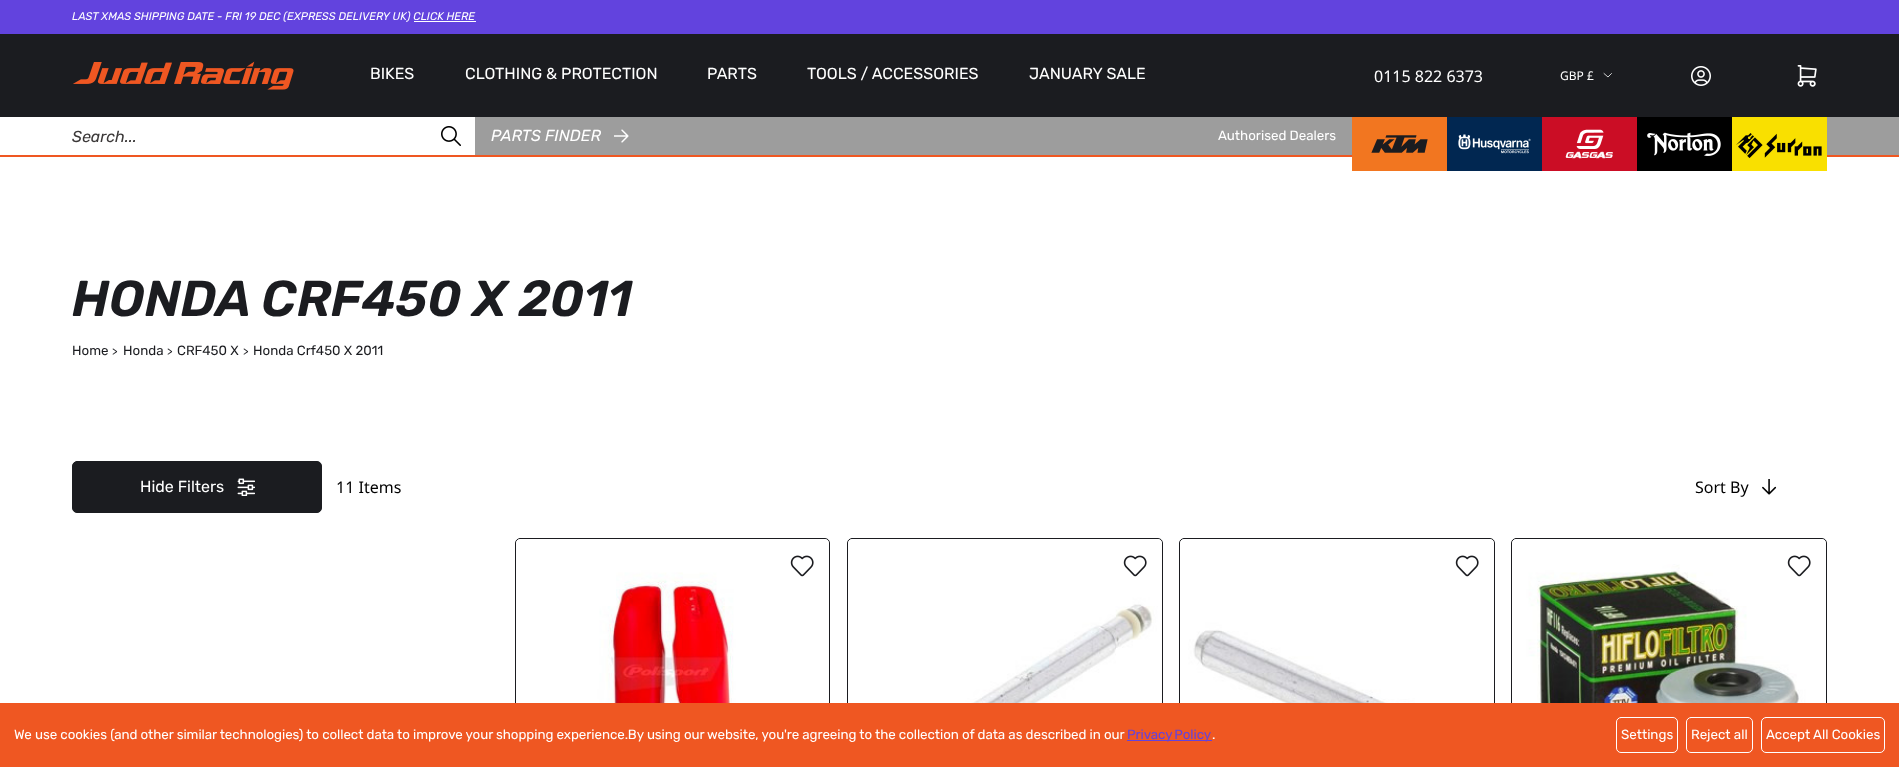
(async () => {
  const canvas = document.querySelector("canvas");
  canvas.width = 1899;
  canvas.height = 767;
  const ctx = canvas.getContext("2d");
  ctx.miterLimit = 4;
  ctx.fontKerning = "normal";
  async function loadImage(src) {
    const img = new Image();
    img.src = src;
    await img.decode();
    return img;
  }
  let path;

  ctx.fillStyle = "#ffffff";
  ctx.fillRect(0, 0, 1899, 767);
  for (const [x, y, w, h, color] of [
    [0, 0, 1899, 34, "#6243de"],
    [414, 21, 62, 1, "#ffffff"],
    [0, 34, 1899, 83, "#1b1c20"],
  ]) {
    ctx.fillStyle = color;
    ctx.fillRect(x, y, w, h);
  }
  ctx.drawImage(await loadImage("img/1.png"), 73, 61, 221, 29);
  path = new Path2D("M1611.5 73.5L1608 77L1604 73.5");
  ctx.strokeStyle = "#ffffff";
  ctx.lineWidth = 0.8;
  ctx.lineCap = "round";
  ctx.lineJoin = "round";
  ctx.stroke(path);
  ctx.drawImage(await loadImage("img/2.png"), 1691, 66, 20, 20);
  ctx.drawImage(await loadImage("img/3.png"), 1797, 65, 20, 22);
  ctx.fillStyle = "#ef5722";
  ctx.fillRect(0, 155, 1899, 2);
  ctx.drawImage(await loadImage("img/4.png"), 441, 126, 20, 20);
  ctx.fillStyle = "#9d9d9d";
  ctx.fillRect(475, 117, 1424, 38);
  ctx.drawImage(await loadImage("img/5.png"), 614, 129, 15, 14);
  ctx.fillStyle = "#f27620";
  ctx.fillRect(1352, 117, 95, 54);
  ctx.drawImage(await loadImage("img/6.png"), 1371, 135, 57, 18);
  ctx.fillStyle = "#012751";
  ctx.fillRect(1447, 117, 95, 54);
  ctx.drawImage(await loadImage("img/7.png"), 1458, 134, 73, 20);
  ctx.fillStyle = "#cb0d25";
  ctx.fillRect(1542, 117, 95, 54);
  ctx.drawImage(await loadImage("img/8.png"), 1565, 129, 48, 30);
  ctx.fillStyle = "#000000";
  ctx.fillRect(1637, 117, 95, 54);
  ctx.drawImage(await loadImage("img/9.png"), 1647, 132, 74, 24);
  ctx.fillStyle = "#f9e000";
  ctx.fillRect(1732, 117, 95, 54);
  ctx.drawImage(await loadImage("img/10.png"), 1736, 133, 86, 25);
  ctx.fillStyle = "#1b1c20";
  ctx.beginPath();
  ctx.roundRect(72.5, 461.5, 249, 51, 4.5);
  ctx.fill();
  ctx.strokeStyle = "#1b1c20";
  ctx.lineWidth = 1;
  ctx.lineJoin = "miter";
  ctx.stroke();
  ctx.drawImage(await loadImage("img/11.png"), 237, 478, 18, 18);
  ctx.drawImage(await loadImage("img/12.png"), 1762, 479, 15, 16);
  ctx.beginPath();
  ctx.roundRect(515.5, 538.5, 314, 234, 4.5);
  ctx.stroke();
  ctx.drawImage(await loadImage("img/13.png"), 516, 539, 313, 164);
  ctx.drawImage(await loadImage("img/14.png"), 790, 555, 24, 22);
  ctx.beginPath();
  ctx.roundRect(847.5, 538.5, 315, 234, 4.5);
  ctx.stroke();
  ctx.drawImage(await loadImage("img/15.png"), 848, 539, 314, 164);
  ctx.drawImage(await loadImage("img/14.png"), 1123, 555, 24, 22);
  ctx.beginPath();
  ctx.roundRect(1179.5, 538.5, 315, 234, 4.5);
  ctx.stroke();
  ctx.drawImage(await loadImage("img/16.png"), 1180, 539, 314, 164);
  ctx.drawImage(await loadImage("img/14.png"), 1455, 555, 24, 22);
  ctx.beginPath();
  ctx.roundRect(1511.5, 538.5, 315, 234, 4.5);
  ctx.stroke();
  ctx.drawImage(await loadImage("img/17.png"), 1512, 539, 314, 164);
  ctx.drawImage(await loadImage("img/14.png"), 1787, 555, 24, 22);
  ctx.fillStyle = "#ef5722";
  ctx.fillRect(0, 703, 1899, 64);
  ctx.fillStyle = "#6243de";
  ctx.fillRect(1127, 740, 85, 1);
  ctx.beginPath();
  ctx.roundRect(1616.5, 717.5, 61, 35, 4.5);
  ctx.strokeStyle = "#ffffff";
  ctx.stroke();
  ctx.beginPath();
  ctx.roundRect(1686.5, 717.5, 66, 35, 4.5);
  ctx.stroke();
  ctx.beginPath();
  ctx.roundRect(1761.5, 717.5, 123, 35, 4.5);
  ctx.stroke();
  ctx.font = "italic 11.1px Rubik";
  ctx.fillStyle = "#ffffff";
  ctx.fillText("LAST XMAS SHIPPING DATE - FRI 19 DEC (EXPRESS DELIVERY UK) CLICK HERE", 72, 20);
  ctx.font = "300 16px Rubik";
  for (const [text, x, y] of [
    ["BIKES", 370, 79],
    ["CLOTHING & PROTECTION", 465, 79],
    ["PARTS", 707, 79],
    ["TOOLS / ACCESSORIES", 807, 79],
    ["JANUARY SALE", 1029, 79],
  ]) {
    ctx.fillText(text, x, y);
  }
  ctx.font = "16px Noto Sans";
  ctx.fillText("0115 822 6373", 1374, 82);
  ctx.font = "12px Noto Sans";
  ctx.fillText("GBP", 1560, 80);
  ctx.fillText("£", 1587, 80);
  ctx.font = "italic 16px Rubik";
  ctx.fillStyle = "#3b3838";
  ctx.fillText("Search...", 72, 142);
  ctx.fillStyle = "#ffffff";
  ctx.fillText("PARTS FINDER", 491, 141);
  ctx.font = "300 13.33px Rubik";
  ctx.fillText("Authorised Dealers", 1218, 140);
  ctx.font = "italic 600 50.5px Rubik";
  ctx.fillStyle = "#1b1c20";
  ctx.fillText("HONDA CRF450 X 2011", 72, 316);
  ctx.font = "300 13.33px Rubik";
  ctx.fillText("Home", 72, 355);
  ctx.font = "300 11.1px Rubik";
  ctx.fillText(">", 112, 355);
  ctx.font = "300 13.33px Rubik";
  ctx.fillText("Honda", 123, 355);
  ctx.font = "300 11.1px Rubik";
  ctx.fillText(">", 167, 355);
  ctx.font = "300 13.33px Rubik";
  ctx.fillText("CRF450 X", 177, 355);
  ctx.font = "300 11.1px Rubik";
  ctx.fillText(">", 243, 355);
  ctx.font = "300 13.33px Rubik";
  ctx.fillText("Honda Crf450 X 2011", 253, 355);
  ctx.font = "300 16px Rubik";
  ctx.fillStyle = "#ffffff";
  ctx.fillText("Hide Filters", 140, 492);
  ctx.font = "16px Noto Sans";
  ctx.fillStyle = "#000000";
  ctx.fillText("11 Items", 336, 493);
  ctx.fillText("Sort By", 1695, 493);
  ctx.letterSpacing = "-0.05px";
  ctx.font = "300 13.33px Rubik";
  ctx.fillStyle = "#ffffff";
  ctx.fillText("We use cookies (and other similar technologies) to collect data to improve your shopping experience.By using our website, you're agreeing to the collection of data as described in our", 14, 739);
  ctx.wordSpacing = "-1px";
  ctx.fillStyle = "#6243de";
  ctx.fillText("Privacy Policy", 1127, 739);
  ctx.wordSpacing = "0px";
  ctx.fillStyle = "#ffffff";
  ctx.fillText(".", 1212, 739);
  ctx.letterSpacing = "0px";
  for (const [text, x, y] of [
    ["Settings", 1621, 739],
    ["Reject all", 1691, 739],
    ["Accept All Cookies", 1766, 739],
  ]) {
    ctx.fillText(text, x, y);
  }
})();
